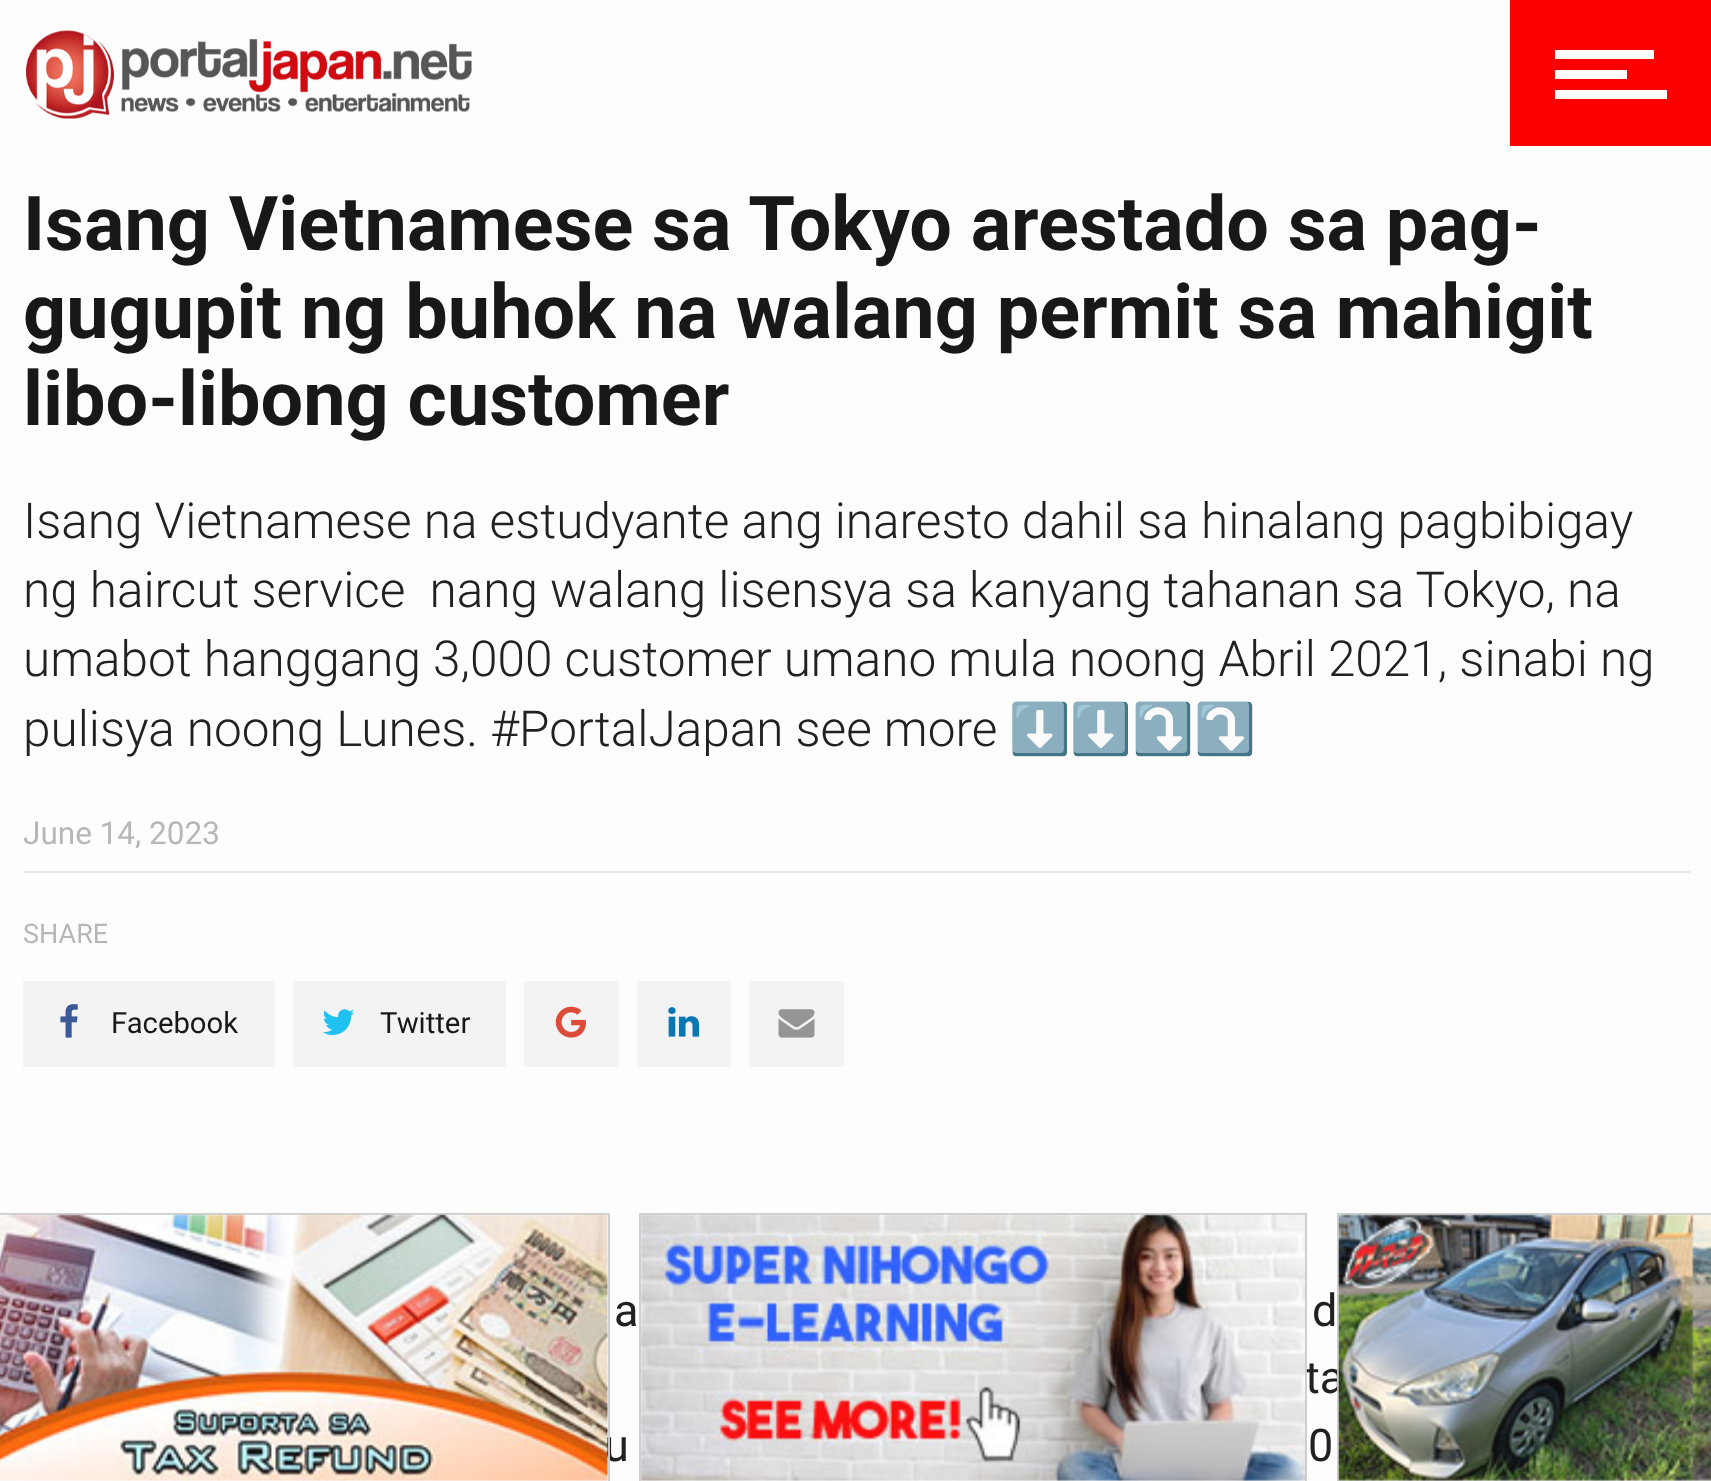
(async () => {
  const canvas = document.querySelector("canvas");
  canvas.width = 1711;
  canvas.height = 1481;
  const ctx = canvas.getContext("2d");
  ctx.miterLimit = 4;
  ctx.fontKerning = "normal";
  async function loadImage(src) {
    const img = new Image();
    img.src = src;
    await img.decode();
    return img;
  }

  ctx.fillStyle = "#fdfdfd";
  ctx.fillRect(0, 0, 1711, 1481);
  ctx.drawImage(await loadImage("img/1.png"), 26, 30, 446, 89);
  for (const [x, y, w, h, color] of [
    [1510, 0, 201, 146, "#fa0000"],
    [1555, 90, 112, 9, "#ffffff"],
    [1555, 70, 72, 9, "#ffffff"],
    [1555, 50, 99, 9, "#ffffff"],
    [23, 871, 1667, 2, "#e7e7e7"],
    [23, 981, 252, 86, "#f3f3f3"],
  ]) {
    ctx.fillStyle = color;
    ctx.fillRect(x, y, w, h);
  }
  ctx.drawImage(await loadImage("img/2.png"), 60, 1004, 18, 34);
  ctx.fillRect(293, 981, 213, 86);
  ctx.drawImage(await loadImage("img/3.png"), 322, 1009, 33, 26);
  ctx.fillRect(524, 981, 95, 86);
  ctx.drawImage(await loadImage("img/4.png"), 555, 1006, 31, 32);
  ctx.fillRect(637, 981, 94, 86);
  ctx.drawImage(await loadImage("img/5.png"), 668, 1007, 32, 30);
  ctx.fillRect(749, 981, 95, 86);
  ctx.drawImage(await loadImage("img/6.png"), 778, 1009, 37, 29);
  ctx.font = "bold 75.6px Roboto";
  ctx.fillStyle = "#181818";
  for (const [text, x, y] of [
    ["Isang Vietnamese sa Tokyo arestado sa pag-", 23, 250],
    ["gugupit ng buhok na walang permit sa mahigit", 23, 338],
    ["libo-libong customer", 23, 425],
  ]) {
    ctx.fillText(text, x, y);
  }
  ctx.font = "300 49.5px Roboto";
  ctx.fillStyle = "#212121";
  for (const [text, x, y] of [
    ["Isang Vietnamese na estudyante ang inaresto dahil sa hinalang pagbibigay", 23, 538],
    ["ng haircut service  nang walang lisensya sa kanyang tahanan sa Tokyo, na", 23, 607],
    ["umabot hanggang 3,000 customer umano mula noong Abril 2021, sinabi ng", 23, 676],
    ["pulisya noong Lunes. #PortalJapan see more", 23, 746],
  ]) {
    ctx.fillText(text, x, y);
  }
  ctx.font = "49.5px Noto Color Emoji";
  ctx.fillText("⬇️⬇️⤵️⤵️", 1009, 746);
  ctx.font = "31.5px Roboto";
  ctx.fillStyle = "#b7b7b7";
  ctx.fillText("June 14, 2023", 23, 844);
  ctx.font = "27px Roboto";
  ctx.fillText("SHARE", 23, 943);
  ctx.font = "29.25px Roboto";
  ctx.fillStyle = "#181818";
  ctx.fillText("Facebook", 111, 1033);
  ctx.fillText("Twitter", 380, 1033);
  ctx.font = "45px Roboto";
  ctx.fillStyle = "#212121";
  for (const [text, x, y] of [
    ["a", 614, 1326],
    ["d", 1312, 1326],
    ["ta", 1305, 1393],
    ["u", 604, 1461],
    ["0", 1308, 1461],
  ]) {
    ctx.fillText(text, x, y);
  }
  ctx.strokeStyle = "rgba(204, 204, 204, 0.95)";
  ctx.lineWidth = 2;
  ctx.strokeRect(-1, 1214, 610, 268);
  ctx.drawImage(await loadImage("img/7.png"), 0, 1214, 608, 267);
  ctx.strokeRect(640, 1214, 666, 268);
  ctx.drawImage(await loadImage("img/8.png"), 641, 1214, 664, 267);
  ctx.strokeRect(1338, 1214, 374, 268);
  ctx.drawImage(await loadImage("img/9.png"), 1338, 1214, 373, 267);
})();
